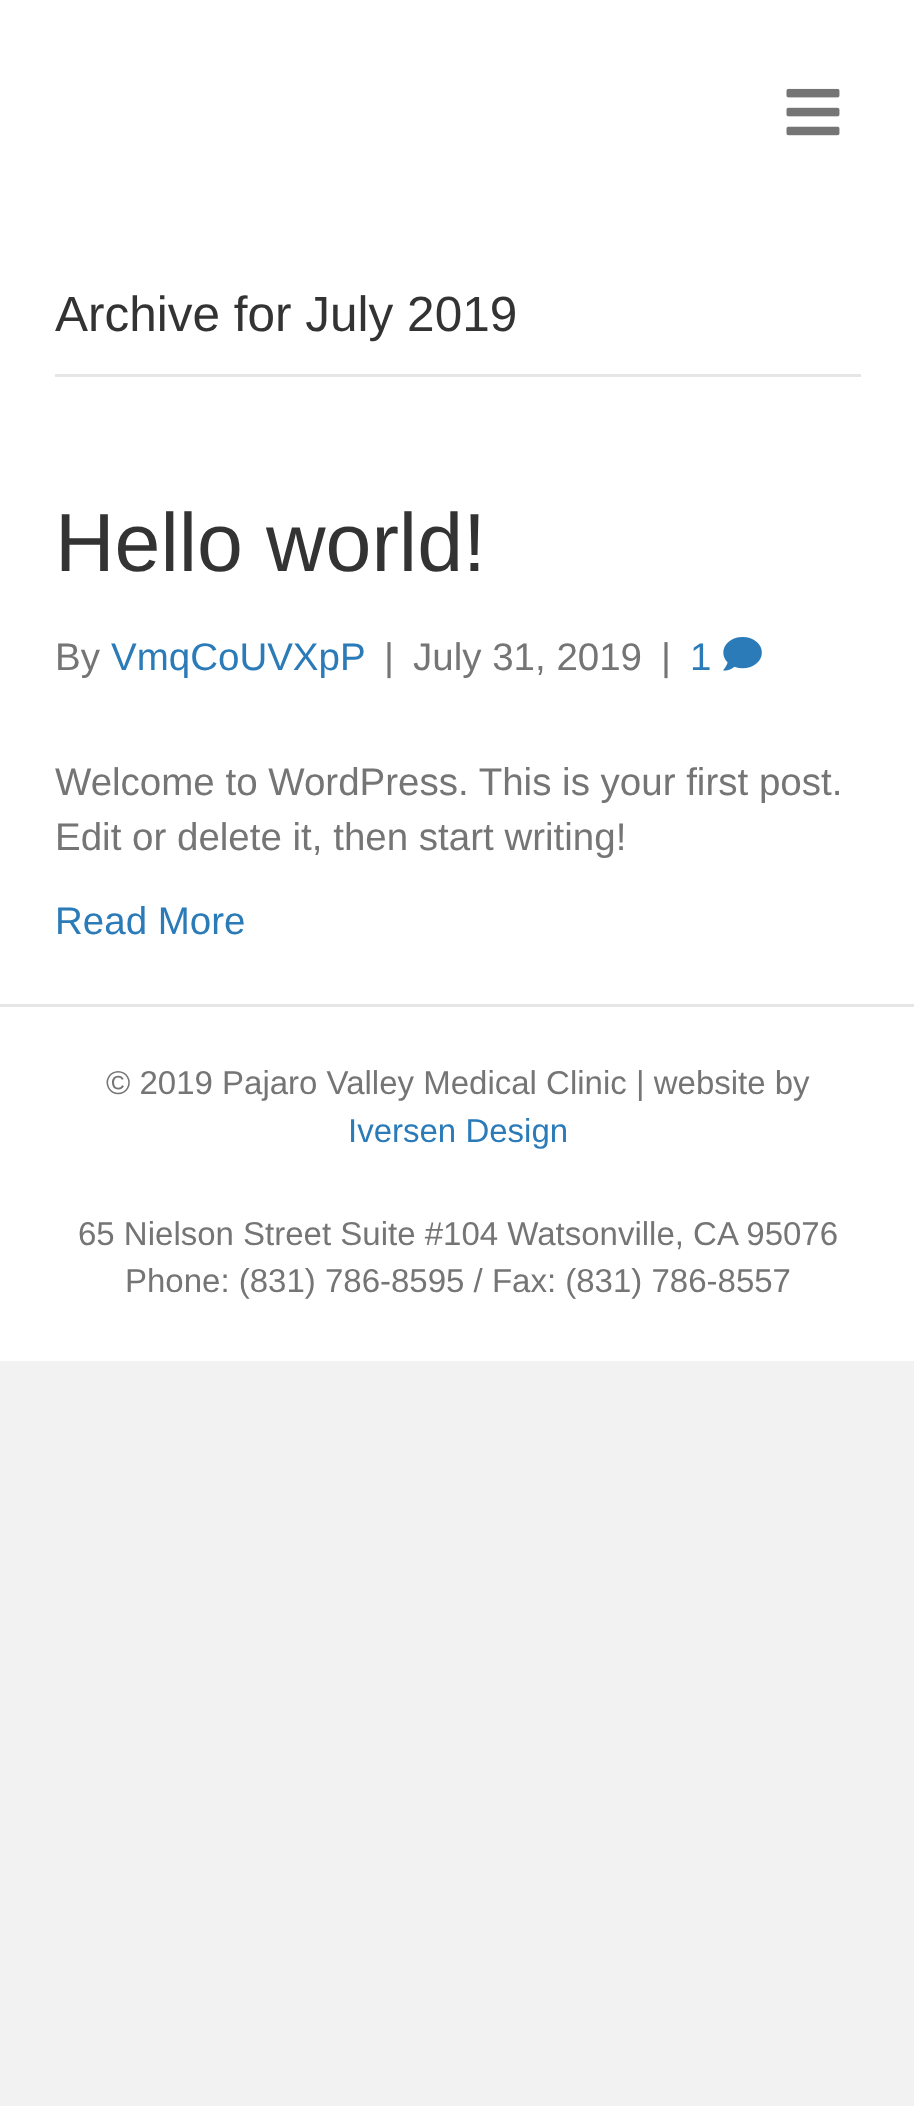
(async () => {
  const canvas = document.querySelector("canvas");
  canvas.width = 914;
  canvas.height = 2106;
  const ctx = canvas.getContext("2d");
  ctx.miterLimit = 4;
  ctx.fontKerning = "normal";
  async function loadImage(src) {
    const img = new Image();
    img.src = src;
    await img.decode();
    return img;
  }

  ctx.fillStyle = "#f2f2f2";
  ctx.fillRect(0, 0, 914, 2106);
  ctx.fillStyle = "#ffffff";
  ctx.fillRect(0, 0, 914, 1004);
  ctx.drawImage(await loadImage("img/1.png"), 786, 88, 54, 48);
  ctx.fillStyle = "#e6e6e6";
  ctx.fillRect(55, 374, 806, 3);
  ctx.drawImage(await loadImage("img/2.png"), 723, 637, 39, 34);
  ctx.fillStyle = "#ffffff";
  ctx.fillRect(0, 1007, 914, 354);
  ctx.fillStyle = "#e6e6e6";
  ctx.fillRect(0, 1004, 914, 3);
  ctx.font = "49.5px Liberation Sans";
  ctx.fillStyle = "#333333";
  ctx.fillText("Archive for July 2019", 55, 331);
  ctx.font = "82.5px Liberation Sans";
  ctx.fillText("Hello world!", 55, 571);
  ctx.font = "38.5px Liberation Sans";
  ctx.fillStyle = "#757575";
  ctx.fillText("By", 55, 670);
  ctx.fillStyle = "#2b7bb9";
  ctx.fillText("VmqCoUVXpP", 111, 670);
  ctx.fillStyle = "#757575";
  for (const [text, x, y] of [
    ["|", 384, 670],
    ["July 31, 2019", 413, 670],
    ["|", 661, 670],
  ]) {
    ctx.fillText(text, x, y);
  }
  ctx.fillStyle = "#2b7bb9";
  ctx.fillText("1", 690, 670);
  ctx.fillStyle = "#757575";
  ctx.fillText("Welcome to WordPress. This is your first post.", 55, 795);
  ctx.fillText("Edit or delete it, then start writing!", 55, 850);
  ctx.fillStyle = "#2b7bb9";
  ctx.fillText("Read More", 55, 934);
  ctx.font = "33px Liberation Sans";
  ctx.fillStyle = "#757575";
  ctx.fillText("© 2019 Pajaro Valley Medical Clinic | website by", 106, 1094);
  ctx.fillStyle = "#2b7bb9";
  ctx.fillText("Iversen Design", 348, 1142);
  ctx.fillStyle = "#757575";
  ctx.fillText("65 Nielson Street Suite #104 Watsonville, CA 95076", 78, 1245);
  ctx.fillText("Phone: (831) 786-8595 / Fax: (831) 786-8557", 125, 1292);
})();
